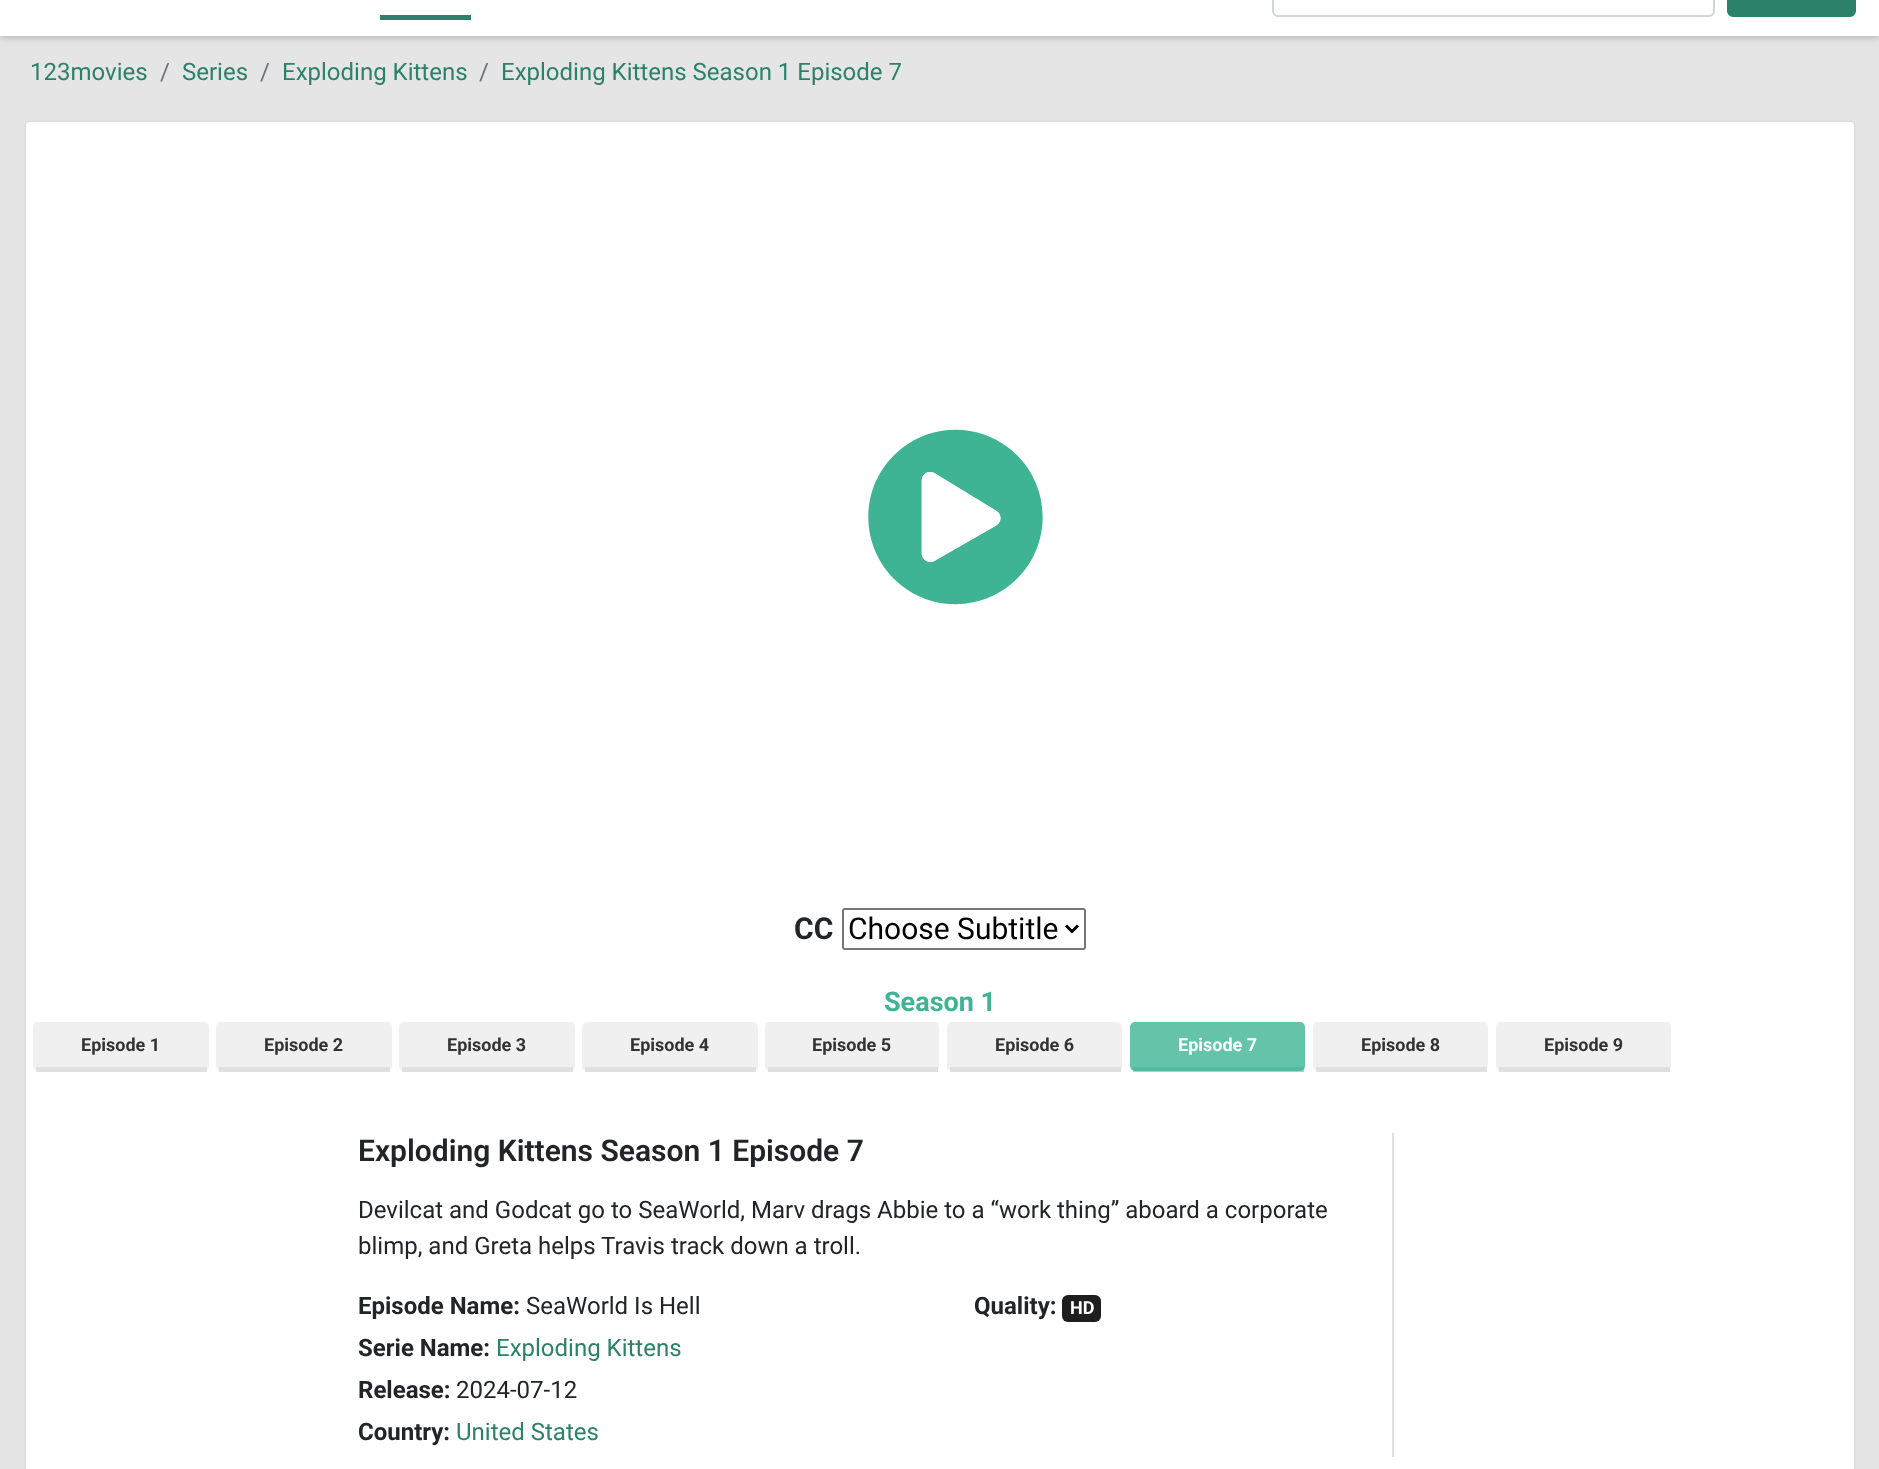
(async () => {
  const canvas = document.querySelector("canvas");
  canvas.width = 1879;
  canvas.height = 1469;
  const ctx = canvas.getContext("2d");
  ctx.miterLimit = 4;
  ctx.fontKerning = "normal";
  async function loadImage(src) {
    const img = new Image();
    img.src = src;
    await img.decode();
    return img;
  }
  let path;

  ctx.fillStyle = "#e5e5e5";
  ctx.fillRect(0, 0, 1879, 1469);
  ctx.fillStyle = "rgba(0, 0, 0, 0.3)";
  ctx.filter = "blur(4px)";
  ctx.beginPath();
  ctx.rect(0, -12, 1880, 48);
  ctx.fill();
  ctx.filter = "none";
  ctx.fillStyle = "#ffffff";
  ctx.fillRect(0, 0, 1879, 36);
  ctx.beginPath();
  ctx.roundRect(1273, -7, 441, 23, 5);
  ctx.strokeStyle = "#ced4da";
  ctx.lineWidth = 2;
  ctx.stroke();
  ctx.fillStyle = "#2c816b";
  ctx.beginPath();
  ctx.roundRect(1728, -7, 127, 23, 5);
  ctx.fill();
  ctx.strokeStyle = "#2c816b";
  ctx.stroke();
  ctx.fillRect(380, 15, 91, 5);
  ctx.fillStyle = "#ffffff";
  ctx.beginPath();
  ctx.roundRect(24, 120, 1832, 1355, 6);
  ctx.fill();
  ctx.beginPath();
  ctx.roundRect(25, 121, 1830, 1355, 5);
  ctx.strokeStyle = "rgba(0, 0, 0, 0.12)";
  ctx.stroke();
  ctx.drawImage(await loadImage("img/1.png"), 868, 429, 175, 176);
  ctx.beginPath();
  ctx.roundRect(843, 909, 242, 40, 2);
  ctx.strokeStyle = "#767676";
  ctx.stroke();
  path = new Path2D("M1066 925.5L1072 931.5L1078 925.5");
  ctx.strokeStyle = "#000000";
  ctx.lineWidth = 3;
  ctx.stroke(path);
  ctx.fillStyle = "#f0f0f0";
  ctx.beginPath();
  ctx.roundRect(33, 1022, 176, 49, 5);
  ctx.fill();
  ctx.fillStyle = "#e0e0e0";
  ctx.fillRect(36, 1067, 171, 5);
  ctx.fillStyle = "#f0f0f0";
  ctx.beginPath();
  ctx.roundRect(216, 1022, 176, 49, 5);
  ctx.fill();
  ctx.fillStyle = "#e0e0e0";
  ctx.fillRect(219, 1067, 171, 5);
  ctx.fillStyle = "#f0f0f0";
  ctx.beginPath();
  ctx.roundRect(399, 1022, 176, 49, 5);
  ctx.fill();
  ctx.fillStyle = "#e0e0e0";
  ctx.fillRect(402, 1067, 171, 5);
  ctx.fillStyle = "#f0f0f0";
  ctx.beginPath();
  ctx.roundRect(582, 1022, 176, 49, 5);
  ctx.fill();
  ctx.fillStyle = "#e0e0e0";
  ctx.fillRect(585, 1067, 171, 5);
  ctx.fillStyle = "#f0f0f0";
  ctx.beginPath();
  ctx.roundRect(765, 1022, 174, 49, 5);
  ctx.fill();
  ctx.fillStyle = "#e0e0e0";
  ctx.fillRect(768, 1067, 170, 5);
  ctx.fillStyle = "#f0f0f0";
  ctx.beginPath();
  ctx.roundRect(947, 1022, 175, 49, 5);
  ctx.fill();
  ctx.fillStyle = "#e0e0e0";
  ctx.fillRect(950, 1067, 171, 5);
  ctx.fillStyle = "#65c3aa";
  ctx.beginPath();
  ctx.roundRect(1130, 1022, 175, 49, 5);
  ctx.fill();
  ctx.fillStyle = "rgba(62, 180, 149, 0.5)";
  ctx.fillRect(1133, 1067, 171, 5);
  ctx.fillStyle = "#f0f0f0";
  ctx.beginPath();
  ctx.roundRect(1313, 1022, 175, 49, 5);
  ctx.fill();
  ctx.fillStyle = "#e0e0e0";
  ctx.fillRect(1316, 1067, 171, 5);
  ctx.fillStyle = "#f0f0f0";
  ctx.beginPath();
  ctx.roundRect(1496, 1022, 175, 49, 5);
  ctx.fill();
  ctx.fillStyle = "#e0e0e0";
  ctx.fillRect(1499, 1067, 171, 5);
  ctx.fillStyle = "#dee2e6";
  ctx.fillRect(1392, 1133, 2, 324);
  ctx.fillStyle = "#1e1e1e";
  ctx.beginPath();
  ctx.roundRect(1062, 1295, 39, 27, 6);
  ctx.fill();
  ctx.font = "24px Roboto";
  ctx.fillStyle = "#2c816b";
  ctx.fillText("123movies", 30, 80);
  ctx.fillStyle = "#6c757d";
  ctx.fillText("/", 160, 80);
  ctx.fillStyle = "#2c816b";
  ctx.fillText("Series", 182, 80);
  ctx.fillStyle = "#6c757d";
  ctx.fillText("/", 260, 80);
  ctx.fillStyle = "#2c816b";
  ctx.fillText("Exploding Kittens", 282, 80);
  ctx.fillStyle = "#6c757d";
  ctx.fillText("/", 479, 80);
  ctx.fillStyle = "#2c816b";
  ctx.fillText("Exploding Kittens Season 1 Episode 7", 501, 80);
  ctx.font = "bold 30px Roboto";
  ctx.fillStyle = "#212529";
  ctx.fillText("CC", 794, 939);
  ctx.font = "30px Roboto";
  ctx.fillStyle = "#000000";
  ctx.fillText("Choose Subtitle", 848, 939);
  ctx.font = "bold 27px Roboto";
  ctx.fillStyle = "#3eb495";
  ctx.fillText("Season 1", 884, 1011);
  ctx.font = "bold 18px Roboto";
  ctx.fillStyle = "#333333";
  for (const [text, x, y] of [
    ["Episode 1", 81, 1051],
    ["Episode 2", 264, 1051],
    ["Episode 3", 447, 1051],
    ["Episode 4", 630, 1051],
    ["Episode 5", 812, 1051],
    ["Episode 6", 995, 1051],
  ]) {
    ctx.fillText(text, x, y);
  }
  ctx.fillStyle = "#ffffff";
  ctx.fillText("Episode 7", 1178, 1051);
  ctx.fillStyle = "#333333";
  ctx.fillText("Episode 8", 1361, 1051);
  ctx.fillText("Episode 9", 1544, 1051);
  ctx.font = "600 30px Roboto";
  ctx.fillStyle = "#212529";
  ctx.fillText("Exploding Kittens Season 1 Episode 7", 358, 1161);
  ctx.font = "24px Roboto";
  ctx.fillText("Devilcat and Godcat go to SeaWorld, Marv drags Abbie to a “work thing” aboard a corporate", 358, 1218);
  ctx.fillText("blimp, and Greta helps Travis track down a troll.", 358, 1254);
  ctx.font = "bold 24px Roboto";
  ctx.fillText("Episode Name:", 358, 1314);
  ctx.font = "24px Roboto";
  ctx.fillText("SeaWorld Is Hell", 526, 1314);
  ctx.font = "bold 24px Roboto";
  ctx.fillText("Serie Name:", 358, 1356);
  ctx.font = "24px Roboto";
  ctx.fillStyle = "#2c816b";
  ctx.fillText("Exploding Kittens", 496, 1356);
  ctx.font = "bold 24px Roboto";
  ctx.fillStyle = "#212529";
  ctx.fillText("Release:", 358, 1398);
  ctx.font = "24px Roboto";
  ctx.fillText("2024-07-12", 456, 1398);
  ctx.font = "bold 24px Roboto";
  ctx.fillText("Country:", 358, 1440);
  ctx.font = "24px Roboto";
  ctx.fillStyle = "#2c816b";
  ctx.fillText("United States", 456, 1440);
  ctx.font = "bold 24px Roboto";
  ctx.fillStyle = "#212529";
  ctx.fillText("Quality:", 974, 1314);
  ctx.font = "bold 18px Roboto";
  ctx.fillStyle = "#ffffff";
  ctx.fillText("HD", 1070, 1314);
})();
